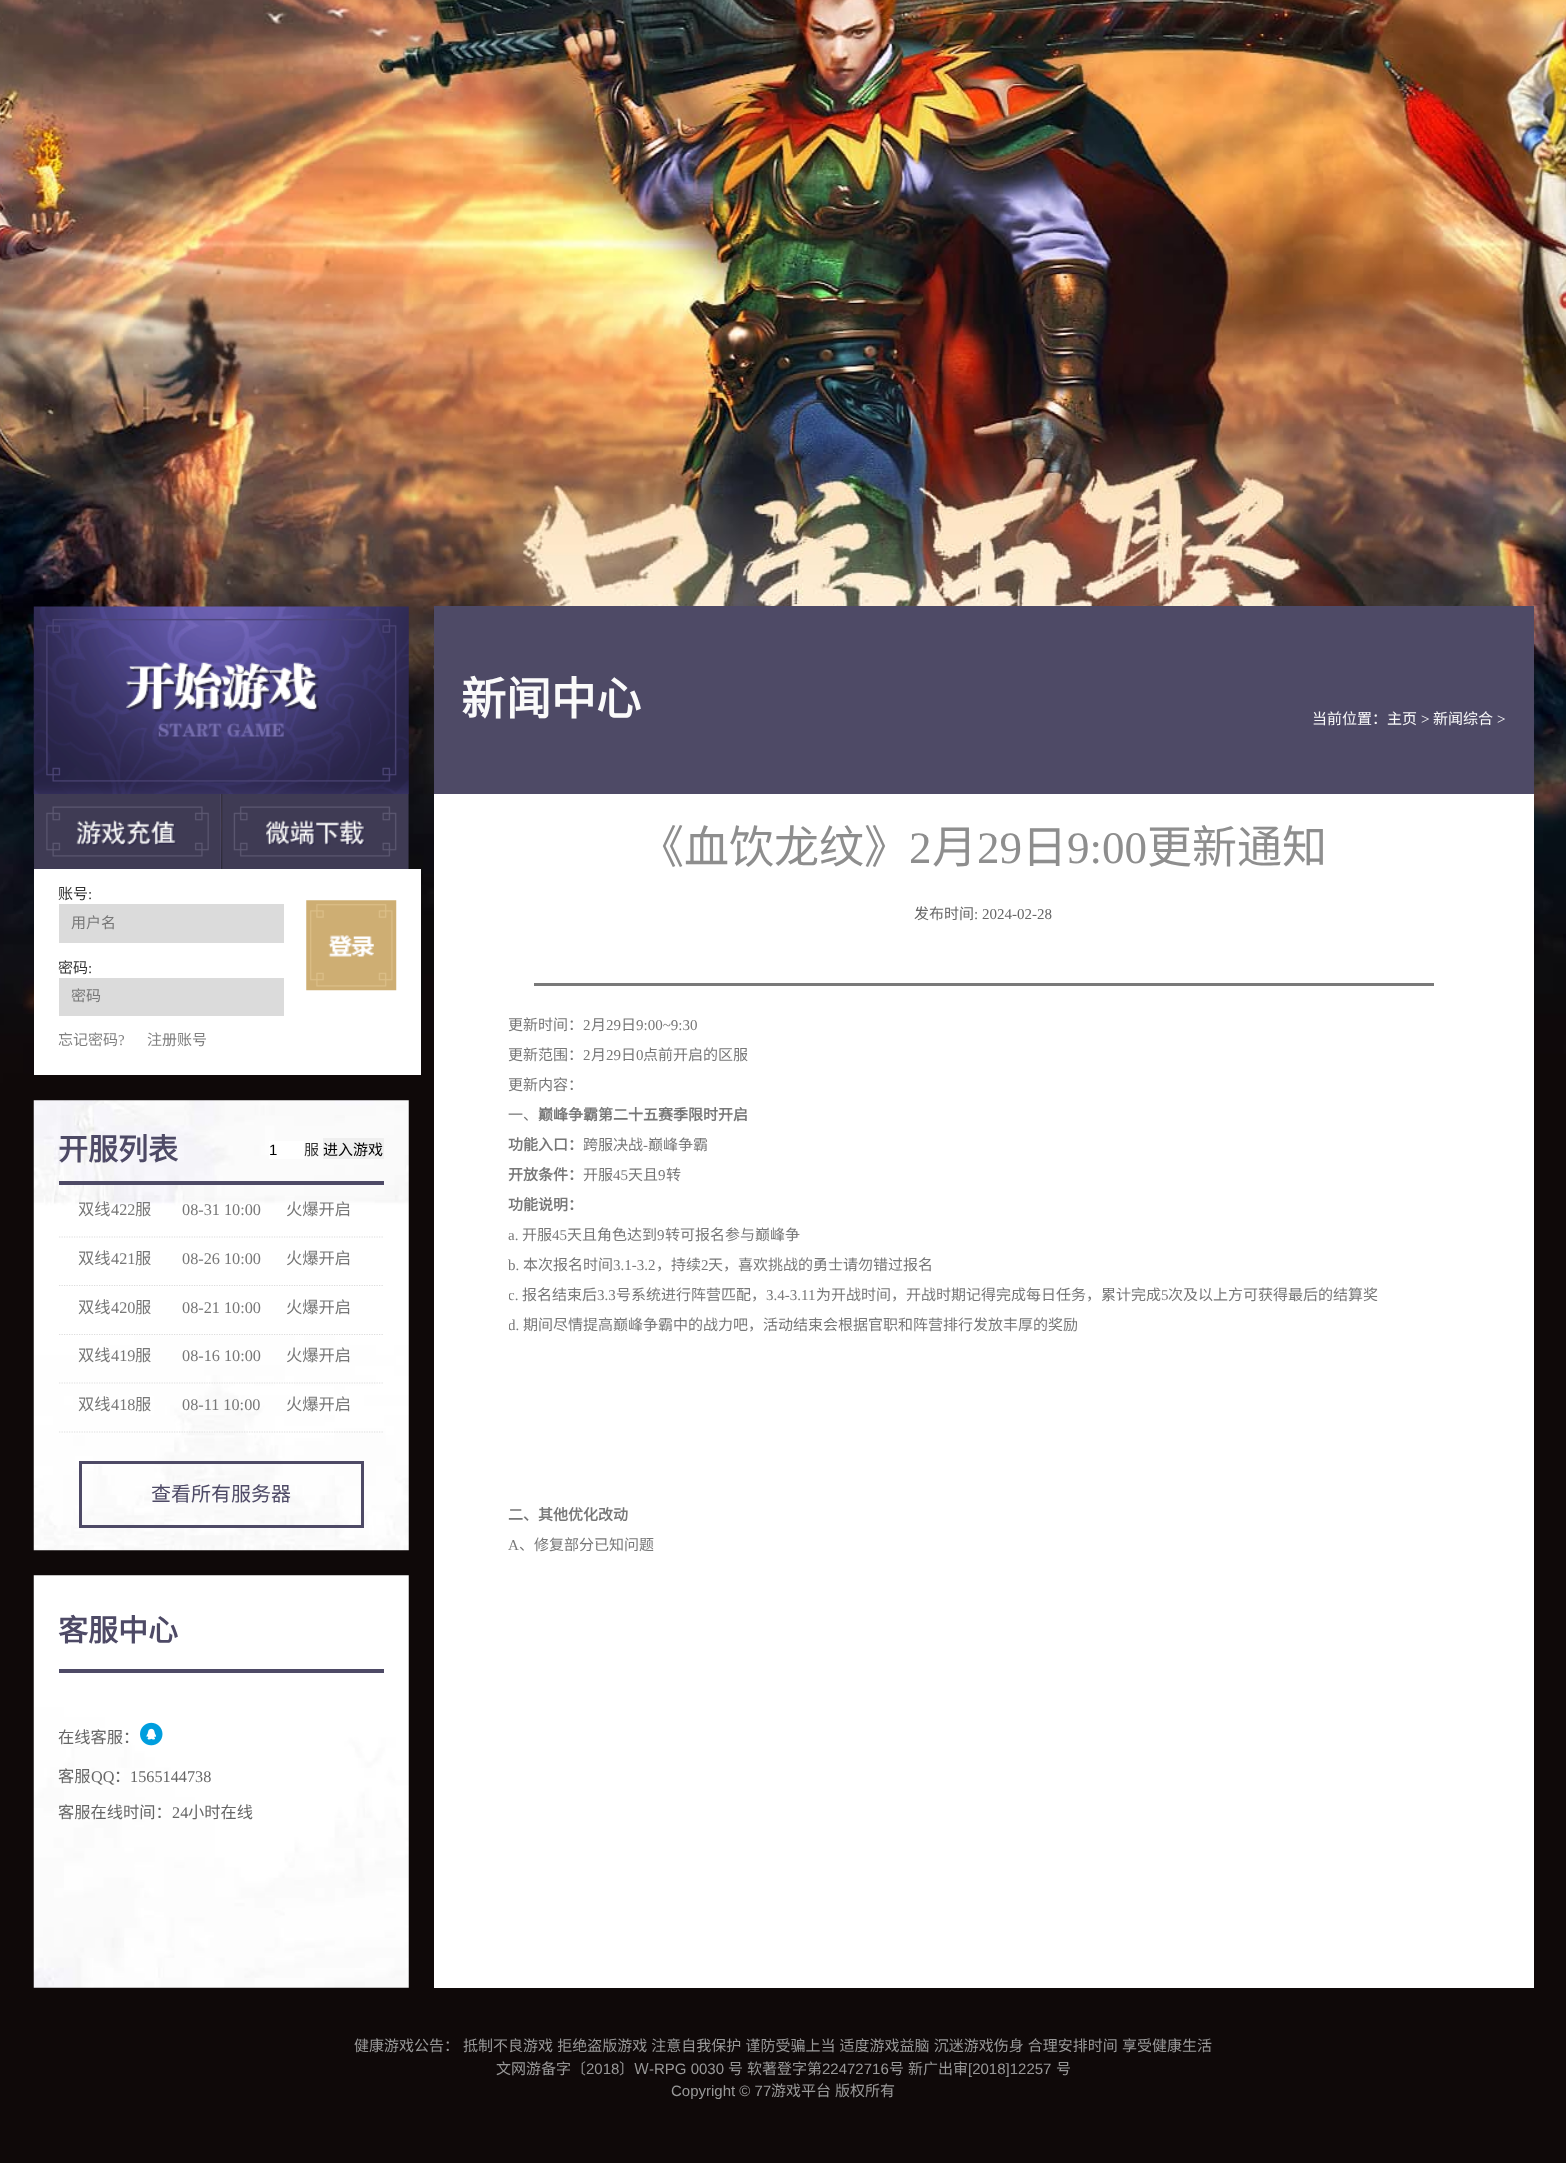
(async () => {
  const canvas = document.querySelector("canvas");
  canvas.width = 1566;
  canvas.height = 2163;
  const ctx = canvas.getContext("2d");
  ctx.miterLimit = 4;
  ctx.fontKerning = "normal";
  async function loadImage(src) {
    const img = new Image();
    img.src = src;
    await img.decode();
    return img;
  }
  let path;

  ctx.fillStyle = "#ffffff";
  ctx.fillRect(0, 0, 1566, 2163);
  ctx.drawImage(await loadImage("img/1.png"), 0, 0, 1566, 2163);
  ctx.drawImage(await loadImage("img/2.png"), 33, 606, 376, 188);
  ctx.drawImage(await loadImage("img/3.png"), 34, 794, 188, 75);
  ctx.drawImage(await loadImage("img/4.png"), 221, 794, 188, 75);
  for (const [x, y, w, h, color] of [
    [34, 869, 387, 206, "#ffffff"],
    [59, 904, 225, 39, "#dbdbdb"],
    [59, 978, 225, 38, "#dbdbdb"],
  ]) {
    ctx.fillStyle = color;
    ctx.fillRect(x, y, w, h);
  }
  ctx.drawImage(await loadImage("img/5.png"), 306, 900, 91, 91);
  ctx.drawImage(await loadImage("img/6.png"), 33, 1100, 376, 451);
  for (const [x, y, w, h, color] of [
    [59, 1181, 325, 4, "#4e4a66"],
    [269, 1141, 35, 18, "#ffffff"],
    [323, 1138, 61, 21, "#efefef"],
  ]) {
    ctx.fillStyle = color;
    ctx.fillRect(x, y, w, h);
  }
  path = new Path2D("M59 1237H384");
  ctx.strokeStyle = "#dddddd";
  ctx.lineWidth = 1.2;
  ctx.setLineDash([1.25, 1.25]);
  ctx.stroke(path);
  path = new Path2D("M59 1285.5H384");
  ctx.stroke(path);
  path = new Path2D("M59 1334.5H384");
  ctx.stroke(path);
  path = new Path2D("M59 1383H384");
  ctx.stroke(path);
  path = new Path2D("M59 1432H384");
  ctx.stroke(path);
  ctx.strokeStyle = "#4e4a66";
  ctx.lineWidth = 3;
  ctx.setLineDash([]);
  ctx.strokeRect(80.5, 1462.5, 282, 64);
  ctx.drawImage(await loadImage("img/7.png"), 33, 1575, 376, 413);
  ctx.fillStyle = "#4e4a66";
  ctx.fillRect(59, 1669, 325, 4);
  ctx.drawImage(await loadImage("img/8.png"), 140, 1722, 23, 24);
  for (const [x, y, w, h, color] of [
    [434, 794, 1100, 1194, "#ffffff"],
    [434, 606, 1100, 188, "#4e4a66"],
    [534, 983, 900, 3, "#797979"],
  ]) {
    ctx.fillStyle = color;
    ctx.fillRect(x, y, w, h);
  }
  ctx.font = "15px Noto Sans CJK SC";
  ctx.fillStyle = "#333333";
  ctx.fillText("账号", 58, 899);
  ctx.font = "15px Liberation Serif";
  ctx.fillText(":", 88, 899);
  ctx.font = "15px Noto Sans CJK SC";
  ctx.fillStyle = "#777777";
  ctx.fillText("用户名", 71, 928);
  ctx.fillStyle = "#333333";
  ctx.fillText("密码", 58, 973);
  ctx.font = "15px Liberation Serif";
  ctx.fillText(":", 88, 973);
  ctx.font = "15px Noto Sans CJK SC";
  ctx.fillStyle = "#777777";
  ctx.fillText("密码", 71, 1001);
  ctx.fillStyle = "#808080";
  ctx.fillText("忘记密码", 58, 1045);
  ctx.font = "15px Liberation Serif";
  ctx.fillText("?", 118, 1045);
  ctx.font = "15px Noto Sans CJK SC";
  ctx.fillText("注册账号", 147, 1045);
  ctx.font = "bold 30px Noto Sans CJK SC";
  ctx.fillStyle = "#4e4a66";
  ctx.fillText("开服列表", 58, 1160);
  ctx.font = "15px Liberation Sans";
  ctx.fillStyle = "#000000";
  ctx.fillText("1", 269, 1155);
  ctx.font = "15px Noto Sans CJK SC";
  ctx.fillStyle = "#333333";
  ctx.fillText("服", 304, 1155);
  ctx.fillStyle = "#000000";
  ctx.fillText("进入游戏", 323, 1155);
  ctx.font = "16.25px Noto Sans CJK SC";
  ctx.fillStyle = "#777777";
  ctx.fillText("双线", 78, 1215);
  ctx.font = "16.25px Liberation Serif";
  ctx.fillText("422", 111, 1215);
  ctx.font = "16.25px Noto Sans CJK SC";
  ctx.fillText("服", 135, 1215);
  ctx.font = "16.25px Liberation Serif";
  ctx.fillText("08-31 10:00", 182, 1215);
  ctx.font = "16.25px Noto Sans CJK SC";
  ctx.fillText("火爆开启", 286, 1215);
  ctx.fillText("双线", 78, 1264);
  ctx.font = "16.25px Liberation Serif";
  ctx.fillText("421", 111, 1264);
  ctx.font = "16.25px Noto Sans CJK SC";
  ctx.fillText("服", 135, 1264);
  ctx.font = "16.25px Liberation Serif";
  ctx.fillText("08-26 10:00", 182, 1264);
  ctx.font = "16.25px Noto Sans CJK SC";
  ctx.fillText("火爆开启", 286, 1264);
  ctx.fillText("双线", 78, 1313);
  ctx.font = "16.25px Liberation Serif";
  ctx.fillText("420", 111, 1313);
  ctx.font = "16.25px Noto Sans CJK SC";
  ctx.fillText("服", 135, 1313);
  ctx.font = "16.25px Liberation Serif";
  ctx.fillText("08-21 10:00", 182, 1313);
  ctx.font = "16.25px Noto Sans CJK SC";
  ctx.fillText("火爆开启", 286, 1313);
  ctx.fillText("双线", 78, 1361);
  ctx.font = "16.25px Liberation Serif";
  ctx.fillText("419", 111, 1361);
  ctx.font = "16.25px Noto Sans CJK SC";
  ctx.fillText("服", 135, 1361);
  ctx.font = "16.25px Liberation Serif";
  ctx.fillText("08-16 10:00", 182, 1361);
  ctx.font = "16.25px Noto Sans CJK SC";
  ctx.fillText("火爆开启", 286, 1361);
  ctx.fillText("双线", 78, 1410);
  ctx.font = "16.25px Liberation Serif";
  ctx.fillText("418", 111, 1410);
  ctx.font = "16.25px Noto Sans CJK SC";
  ctx.fillText("服", 135, 1410);
  ctx.font = "16.25px Liberation Serif";
  ctx.fillText("08-11 10:00", 182, 1410);
  ctx.font = "16.25px Noto Sans CJK SC";
  ctx.fillText("火爆开启", 286, 1410);
  ctx.font = "20px Noto Sans CJK SC";
  ctx.fillStyle = "#4e4a66";
  ctx.fillText("查看所有服务器", 151, 1501);
  ctx.font = "bold 30px Noto Sans CJK SC";
  ctx.fillText("客服中心", 58, 1641);
  ctx.font = "16.25px Noto Sans CJK SC";
  ctx.fillStyle = "#666666";
  ctx.fillText("在线客服：", 58, 1743);
  ctx.fillText("客服", 58, 1782);
  ctx.font = "16.25px Liberation Serif";
  ctx.fillText("QQ", 91, 1782);
  ctx.font = "16.25px Noto Sans CJK SC";
  ctx.fillText("：", 114, 1782);
  ctx.font = "16.25px Liberation Serif";
  ctx.fillText("1565144738", 130, 1782);
  ctx.font = "16.25px Noto Sans CJK SC";
  ctx.fillText("客服在线时间：", 58, 1818);
  ctx.font = "16.25px Liberation Serif";
  ctx.fillText("24", 172, 1818);
  ctx.font = "16.25px Noto Sans CJK SC";
  ctx.fillText("小时在线", 188, 1818);
  ctx.font = "bold 45px Noto Sans CJK SC";
  ctx.fillStyle = "#fafafa";
  ctx.fillText("新闻中心", 461, 715);
  ctx.font = "15px Noto Sans CJK SC";
  ctx.fillText("当前位置：主页", 1312, 724);
  ctx.font = "15px Liberation Serif";
  ctx.fillText(">", 1421, 724);
  ctx.font = "15px Noto Sans CJK SC";
  ctx.fillText("新闻综合", 1433, 724);
  ctx.font = "15px Liberation Serif";
  ctx.fillText(">", 1497, 724);
  ctx.font = "45px Noto Sans CJK SC";
  ctx.fillStyle = "#8e8e8e";
  ctx.fillText("《血饮龙纹》", 639, 863);
  ctx.font = "45px Liberation Serif";
  ctx.fillText("2", 909, 863);
  ctx.font = "45px Noto Sans CJK SC";
  ctx.fillText("月", 932, 863);
  ctx.font = "45px Liberation Serif";
  ctx.fillText("29", 977, 863);
  ctx.font = "45px Noto Sans CJK SC";
  ctx.fillText("日", 1022, 863);
  ctx.font = "45px Liberation Serif";
  ctx.fillText("9:00", 1067, 863);
  ctx.font = "45px Noto Sans CJK SC";
  ctx.fillText("更新通知", 1147, 863);
  ctx.font = "15px Noto Sans CJK SC";
  ctx.fillStyle = "#666666";
  ctx.fillText("发布时间", 914, 919);
  ctx.font = "15px Liberation Serif";
  ctx.fillText(": 2024-02-28", 974, 919);
  ctx.font = "15px Noto Sans CJK SC";
  ctx.fillStyle = "#777777";
  ctx.fillText("更新时间：", 508, 1030);
  ctx.font = "15px Liberation Serif";
  ctx.fillText("2", 583, 1030);
  ctx.font = "15px Noto Sans CJK SC";
  ctx.fillText("月", 591, 1030);
  ctx.font = "15px Liberation Serif";
  ctx.fillText("29", 606, 1030);
  ctx.font = "15px Noto Sans CJK SC";
  ctx.fillText("日", 621, 1030);
  ctx.font = "15px Liberation Serif";
  ctx.fillText("9:00~9:30", 636, 1030);
  ctx.font = "15px Noto Sans CJK SC";
  ctx.fillText("更新范围：", 508, 1060);
  ctx.font = "15px Liberation Serif";
  ctx.fillText("2", 583, 1060);
  ctx.font = "15px Noto Sans CJK SC";
  ctx.fillText("月", 591, 1060);
  ctx.font = "15px Liberation Serif";
  ctx.fillText("29", 606, 1060);
  ctx.font = "15px Noto Sans CJK SC";
  ctx.fillText("日", 621, 1060);
  ctx.font = "15px Liberation Serif";
  ctx.fillText("0", 636, 1060);
  ctx.font = "15px Noto Sans CJK SC";
  for (const [text, x, y] of [
    ["点前开启的区服", 643, 1060],
    ["更新内容：", 508, 1090],
    ["一、", 508, 1120],
  ]) {
    ctx.fillText(text, x, y);
  }
  ctx.font = "bold 15px Noto Sans CJK SC";
  ctx.fillText("巅峰争霸第二十五赛季限时开启", 538, 1120);
  ctx.fillText("功能入口：", 508, 1150);
  ctx.font = "15px Noto Sans CJK SC";
  ctx.fillText("跨服决战", 583, 1150);
  ctx.font = "15px Liberation Serif";
  ctx.fillText("-", 643, 1150);
  ctx.font = "15px Noto Sans CJK SC";
  ctx.fillText("巅峰争霸", 648, 1150);
  ctx.font = "bold 15px Noto Sans CJK SC";
  ctx.fillText("开放条件：", 508, 1180);
  ctx.font = "15px Noto Sans CJK SC";
  ctx.fillText("开服", 583, 1180);
  ctx.font = "15px Liberation Serif";
  ctx.fillText("45", 613, 1180);
  ctx.font = "15px Noto Sans CJK SC";
  ctx.fillText("天且", 628, 1180);
  ctx.font = "15px Liberation Serif";
  ctx.fillText("9", 658, 1180);
  ctx.font = "15px Noto Sans CJK SC";
  ctx.fillText("转", 666, 1180);
  ctx.font = "bold 15px Noto Sans CJK SC";
  ctx.fillText("功能说明：", 508, 1210);
  ctx.font = "15px Liberation Serif";
  ctx.fillText("a.", 508, 1240);
  ctx.font = "15px Noto Sans CJK SC";
  ctx.fillText("开服", 522, 1240);
  ctx.font = "15px Liberation Serif";
  ctx.fillText("45", 552, 1240);
  ctx.font = "15px Noto Sans CJK SC";
  ctx.fillText("天且角色达到", 567, 1240);
  ctx.font = "15px Liberation Serif";
  ctx.fillText("9", 657, 1240);
  ctx.font = "15px Noto Sans CJK SC";
  ctx.fillText("转可报名参与巅峰争", 665, 1240);
  ctx.font = "15px Liberation Serif";
  ctx.fillText("b.", 508, 1270);
  ctx.font = "15px Noto Sans CJK SC";
  ctx.fillText("本次报名时间", 523, 1270);
  ctx.font = "15px Liberation Serif";
  ctx.fillText("3.1-3.2", 613, 1270);
  ctx.font = "15px Noto Sans CJK SC";
  ctx.fillText("，持续", 656, 1270);
  ctx.font = "15px Liberation Serif";
  ctx.fillText("2", 701, 1270);
  ctx.font = "15px Noto Sans CJK SC";
  ctx.fillText("天，喜欢挑战的勇士请勿错过报名", 708, 1270);
  ctx.save();
  ctx.beginPath();
  ctx.rect(509, 1010, 950, 550);
  ctx.clip();
  ctx.font = "15px Liberation Serif";
  ctx.fillText("c.", 508, 1300);
  ctx.restore();
  ctx.fillText("报名结束后", 522, 1300);
  ctx.font = "15px Liberation Serif";
  ctx.fillText("3.3", 597, 1300);
  ctx.font = "15px Noto Sans CJK SC";
  ctx.fillText("号系统进行阵营匹配，", 616, 1300);
  ctx.font = "15px Liberation Serif";
  ctx.fillText("3.4-3.11", 766, 1300);
  ctx.font = "15px Noto Sans CJK SC";
  ctx.fillText("为开战时间，开战时期记得完成每日任务，累计完成", 816, 1300);
  ctx.font = "15px Liberation Serif";
  ctx.fillText("5", 1161, 1300);
  ctx.font = "15px Noto Sans CJK SC";
  ctx.fillText("次及以上方可获得最后的结算奖", 1168, 1300);
  ctx.save();
  ctx.beginPath();
  ctx.rect(509, 1010, 950, 550);
  ctx.clip();
  ctx.font = "15px Liberation Serif";
  ctx.fillText("d.", 508, 1330);
  ctx.restore();
  ctx.fillText("期间尽情提高巅峰争霸中的战力吧，活动结束会根据官职和阵营排行发放丰厚的奖励", 523, 1330);
  ctx.font = "bold 15px Noto Sans CJK SC";
  ctx.fillText("二、其他优化改动", 508, 1520);
  ctx.font = "15px Liberation Serif";
  ctx.fillText("A", 508, 1550);
  ctx.font = "15px Noto Sans CJK SC";
  ctx.fillText("、修复部分已知问题", 519, 1550);
  ctx.wordSpacing = "0.75px";
  ctx.fillStyle = "#999999";
  ctx.fillText("健康游戏公告： 抵制不良游戏 拒绝盗版游戏 注意自我保护 谨防受骗上当 适度游戏益脑 沉迷游戏伤身 合理安排时间 享受健康生活", 354, 2051);
  ctx.wordSpacing = "0px";
  ctx.fillText("文网游备字〔", 496, 2074);
  ctx.font = "15px Liberation Sans";
  ctx.fillText("2018", 586, 2074);
  ctx.font = "15px Noto Sans CJK SC";
  ctx.fillText("〕Ｗ", 619, 2074);
  ctx.font = "15px Liberation Sans";
  ctx.fillText("-RPG 0030", 649, 2074);
  ctx.font = "15px Noto Sans CJK SC";
  ctx.fillText("号", 728, 2074);
  ctx.fillText("软著登字第", 747, 2074);
  ctx.font = "15px Liberation Sans";
  ctx.fillText("22472716", 822, 2074);
  ctx.font = "15px Noto Sans CJK SC";
  ctx.fillText("号", 889, 2074);
  ctx.fillText("新广出审", 908, 2074);
  ctx.font = "15px Liberation Sans";
  ctx.fillText("[2018]12257", 968, 2074);
  ctx.font = "15px Noto Sans CJK SC";
  ctx.fillText("号", 1056, 2074);
  ctx.font = "15px Liberation Sans";
  ctx.fillText("Copyright © 77", 671, 2096);
  ctx.font = "15px Noto Sans CJK SC";
  ctx.fillText("游戏平台", 771, 2096);
  ctx.fillText("版权所有", 835, 2096);
})();
